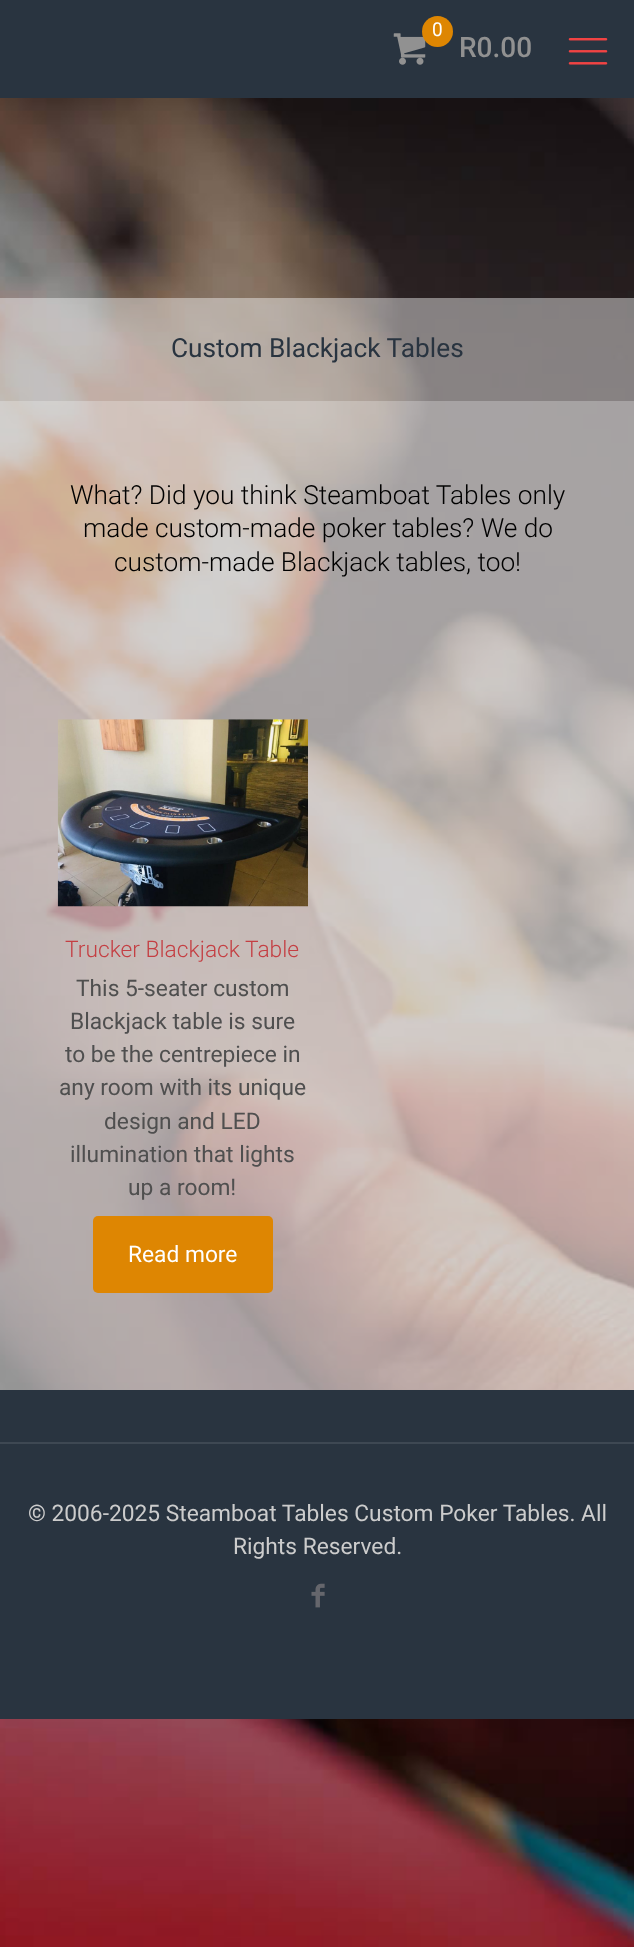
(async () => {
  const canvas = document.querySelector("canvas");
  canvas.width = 634;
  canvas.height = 1947;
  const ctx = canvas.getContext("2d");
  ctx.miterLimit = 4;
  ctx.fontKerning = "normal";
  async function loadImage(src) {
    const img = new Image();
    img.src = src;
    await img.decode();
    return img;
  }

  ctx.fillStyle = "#ffffff";
  ctx.fillRect(0, 0, 634, 1947);
  ctx.drawImage(await loadImage("img/1.png"), 0, 98, 634, 1849);
  ctx.fillStyle = "#293440";
  ctx.fillRect(0, 0, 634, 98);
  ctx.drawImage(await loadImage("img/2.png"), 393, 33, 33, 32);
  ctx.fillStyle = "#de8602";
  ctx.beginPath();
  ctx.arc(437.5, 31.5, 15.5, 0, Math.PI * 2);
  ctx.fill();
  ctx.drawImage(await loadImage("img/3.png"), 568, 38, 40, 27);
  ctx.fillStyle = "rgba(247, 247, 247, 0.45)";
  ctx.fillRect(0, 298, 634, 103);
  ctx.fillStyle = "rgba(248, 249, 249, 0.6)";
  ctx.fillRect(0, 401, 634, 989);
  ctx.drawImage(await loadImage("img/4.png"), 57, 719, 251, 188);
  ctx.fillStyle = "#de8602";
  ctx.beginPath();
  ctx.roundRect(93, 1216, 180, 77, 5);
  ctx.fill();
  ctx.fillStyle = "#293440";
  ctx.fillRect(0, 1390, 634, 329);
  ctx.fillStyle = "#3e4853";
  ctx.fillRect(0, 1442, 634, 2);
  ctx.drawImage(await loadImage("img/5.png"), 311, 1583, 14, 25);
  ctx.font = "19px Roboto";
  ctx.fillStyle = "#ffffff";
  ctx.fillText("0", 432, 36);
  ctx.font = "500 28px Roboto";
  ctx.fillStyle = "#919191";
  ctx.fillText("R0.00", 459, 57);
  ctx.font = "26.25px Roboto";
  ctx.fillStyle = "#293440";
  ctx.fillText("Custom Blackjack Tables", 171, 357);
  ctx.font = "300 26.25px Roboto";
  ctx.fillStyle = "#000000";
  for (const [text, x, y] of [
    ["What? Did you think Steamboat Tables only", 70, 504],
    ["made custom-made poker tables? We do", 83, 537],
    ["custom-made Blackjack tables, too!", 114, 571],
  ]) {
    ctx.fillText(text, x, y);
  }
  ctx.font = "300 22.75px Roboto";
  ctx.fillStyle = "#c43f43";
  ctx.fillText("Trucker Blackjack Table", 65, 957);
  ctx.font = "22.75px Roboto";
  ctx.fillStyle = "#4f4f4f";
  for (const [text, x, y] of [
    ["This 5-seater custom", 76, 996],
    ["Blackjack table is sure", 70, 1029],
    ["to be the centrepiece in", 65, 1062],
    ["any room with its unique", 59, 1095],
    ["design and LED", 104, 1129],
    ["illumination that lights", 70, 1162],
    ["up a room!", 128, 1195],
  ]) {
    ctx.fillText(text, x, y);
  }
  ctx.fillStyle = "#ffffff";
  ctx.fillText("Read more", 128, 1262);
  ctx.fillStyle = "#cccccc";
  ctx.fillText("© 2006-2025 Steamboat Tables Custom Poker Tables. All", 28, 1521);
  ctx.fillText("Rights Reserved.", 233, 1554);
})();
